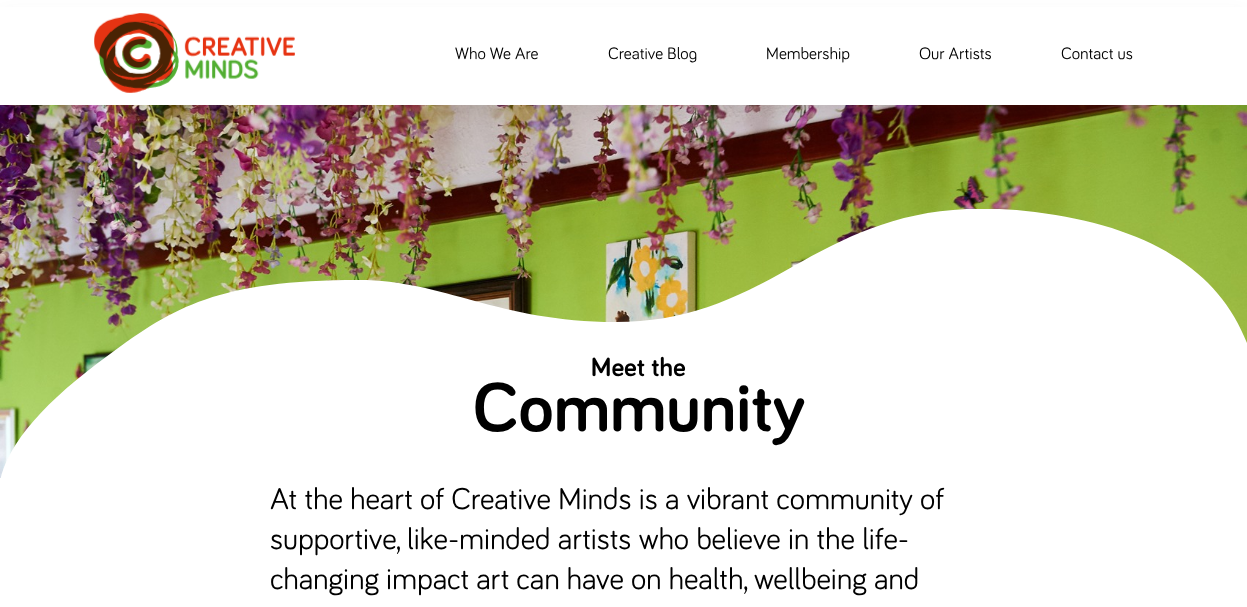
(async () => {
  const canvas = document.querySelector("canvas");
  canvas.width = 1247;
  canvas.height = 607;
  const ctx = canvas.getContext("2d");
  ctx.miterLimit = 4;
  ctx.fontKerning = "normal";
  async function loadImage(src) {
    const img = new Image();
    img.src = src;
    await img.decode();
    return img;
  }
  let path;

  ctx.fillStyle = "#ffffff";
  ctx.fillRect(0, 0, 1247, 607);
  ctx.drawImage(await loadImage("img/2.png"), 0, 105, 1247, 373);
  ctx.fillStyle = "rgba(51, 51, 51, 0.07)";
  ctx.filter = "blur(8px)";
  ctx.beginPath();
  ctx.rect(4, 14, 1239, 97);
  ctx.fill();
  ctx.filter = "none";
  ctx.fillStyle = "#ffffff";
  ctx.fillRect(0, 7, 1247, 98);
  ctx.drawImage(await loadImage("img/1.png"), 94, 13, 201, 80);
  ctx.save();
  ctx.beginPath();
  ctx.rect(0, 209, 1247, 273);
  ctx.clip();
  path = new Path2D("M1247 343V481H0C8 443 45 401 110 354C174 307 218 280 359 280C443 280 499 322 615 322C685 322 732 301 792 267C858 230 921 198 1035 212C1148 226 1219 270 1247 343Z");
  ctx.fill(path, "evenodd");
  ctx.restore();
  ctx.font = "17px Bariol";
  ctx.fillStyle = "#000000";
  for (const [text, x, y] of [
    ["Who We Are", 455, 59],
    ["Creative Blog", 608, 59],
    ["Membership", 766, 59],
    ["Our Artists", 919, 59],
    ["Contact us", 1061, 59],
  ]) {
    ctx.fillText(text, x, y);
  }
  ctx.font = "bold 27px Bariol";
  ctx.fillText("Meet the", 591, 376);
  ctx.font = "bold 71px Bariol";
  ctx.fillText("Community", 473, 431);
  ctx.letterSpacing = "-0.1px";
  ctx.font = "31px Bariol";
  ctx.fillText("At the heart of Creative Minds is a vibrant community of", 270, 509);
  ctx.fillText("supportive, like-minded artists who believe in the life-", 270, 549);
  ctx.wordSpacing = "-0.25px";
  ctx.fillText("changing impact art can have on health, wellbeing and", 270, 589);
})();
